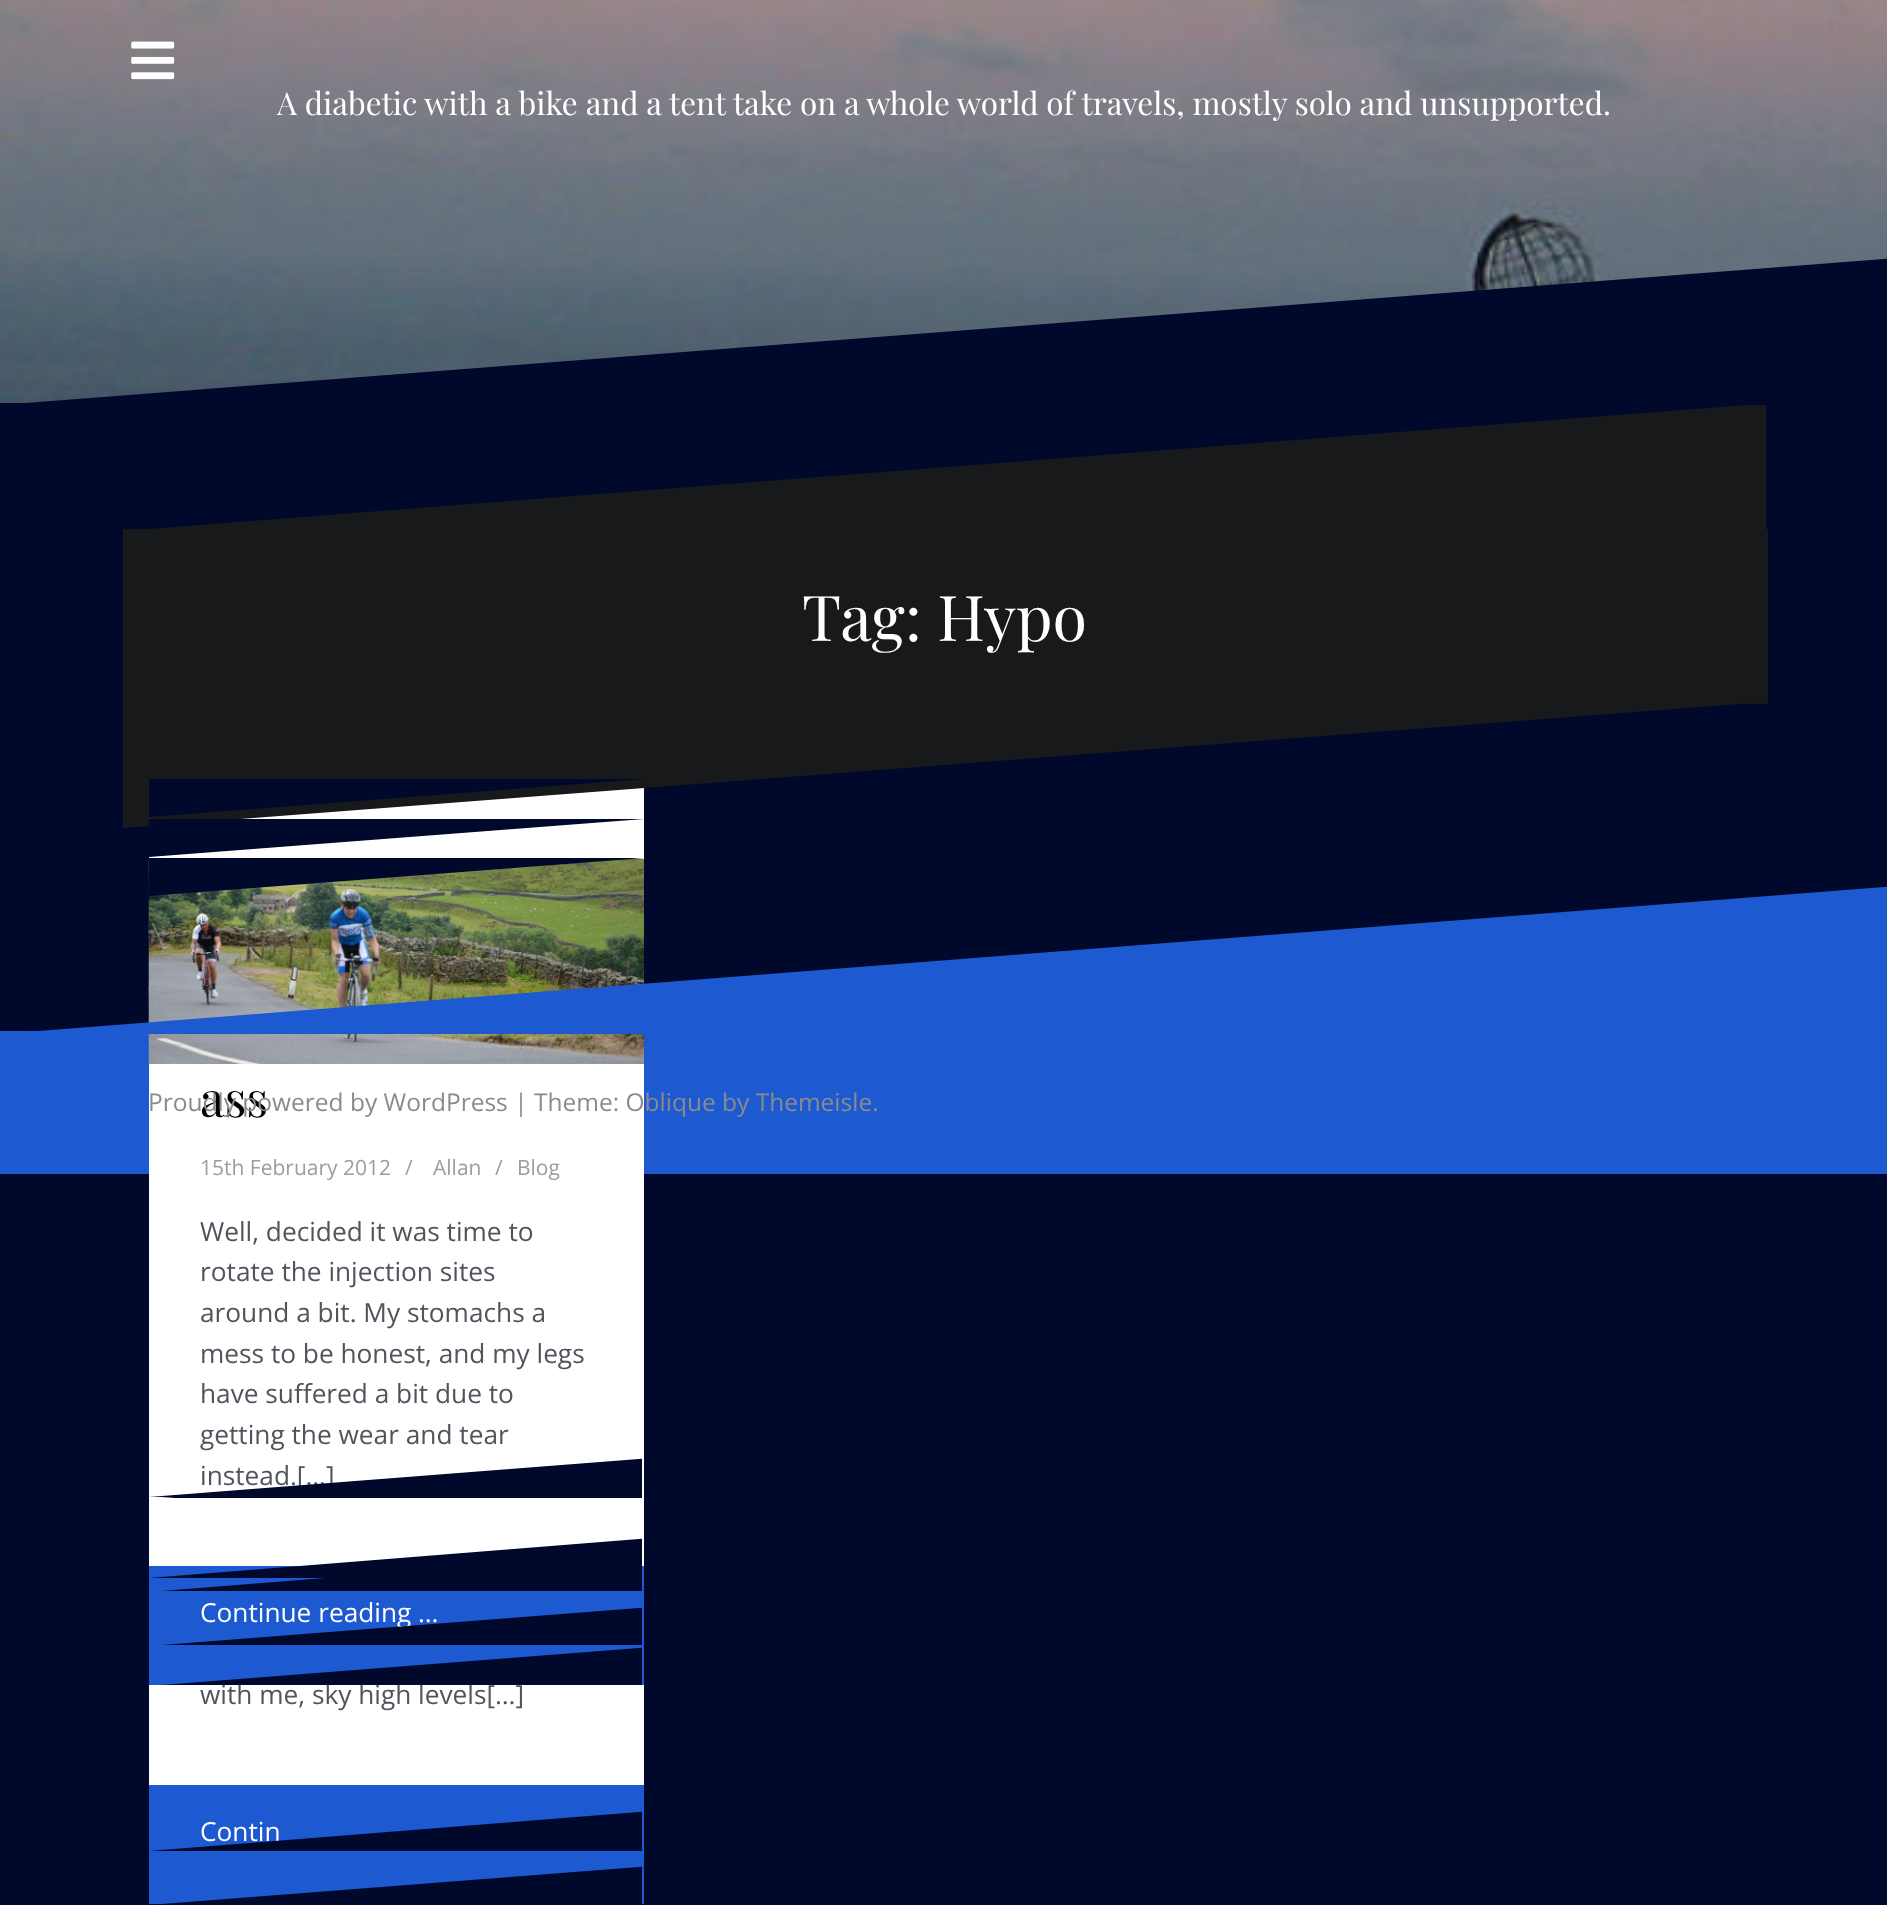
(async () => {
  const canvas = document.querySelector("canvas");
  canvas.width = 1887;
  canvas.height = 1905;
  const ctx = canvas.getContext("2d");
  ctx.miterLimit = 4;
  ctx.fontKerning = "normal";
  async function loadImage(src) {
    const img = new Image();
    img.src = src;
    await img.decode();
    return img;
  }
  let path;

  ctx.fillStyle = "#00092b";
  ctx.fillRect(0, 0, 1887, 1905);
  ctx.drawImage(await loadImage("img/2.png"), 0, 0, 1887, 403);
  ctx.drawImage(await loadImage("img/1.png"), 131, 41, 44, 39);
  ctx.fillStyle = "#17191b";
  ctx.fillRect(123, 529, 1645, 175);
  ctx.save();
  ctx.beginPath();
  ctx.rect(123, 401, 1643, 129);
  ctx.clip();
  path = new Path2D("M1798 401V531H122");
  ctx.fill(path);
  ctx.restore();
  ctx.fillStyle = "#00092b";
  path = new Path2D("M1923 256V405H0");
  ctx.fill(path);
  ctx.fillStyle = "#1d59d1";
  ctx.fillRect(0, 1031, 1887, 143);
  ctx.fillStyle = "#ffffff";
  ctx.fillRect(149, 788, 495, 778);
  ctx.save();
  ctx.beginPath();
  ctx.rect(123, 702, 1643, 126);
  ctx.clip();
  ctx.fillStyle = "#17191b";
  path = new Path2D("M122 828V702H1767");
  ctx.fill(path);
  ctx.restore();
  ctx.fillStyle = "#00092b";
  path = new Path2D("M149 817V779H644");
  ctx.fill(path);
  path = new Path2D("M149 857V819H644");
  ctx.fill(path);
  ctx.drawImage(await loadImage("img/3.png"), 148, 859, 496, 163);
  ctx.drawImage(await loadImage("img/4.png"), 148, 859, 496, 205);
  ctx.fillStyle = "#1d59d1";
  path = new Path2D("M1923 884V1034H0");
  ctx.fill(path);
  ctx.fillStyle = "#00092b";
  path = new Path2D("M149 896V858H644");
  ctx.fill(path);
  ctx.fillStyle = "#ffffff";
  ctx.fillRect(149, 1685, 495, 100);
  ctx.fillStyle = "#1d59d1";
  ctx.fillRect(149, 1785, 495, 119);
  ctx.save();
  ctx.beginPath();
  ctx.rect(149, 1866, 493, 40);
  ctx.clip();
  ctx.fillStyle = "#00092b";
  path = new Path2D("M653 1866V1905H149");
  ctx.fill(path);
  ctx.restore();
  ctx.font = "31.5px Playfair Display";
  ctx.fillStyle = "#ffffff";
  ctx.fillText("A diabetic with a bike and a tent take on a whole world of travels, mostly solo and unsupported.", 277, 115);
  ctx.font = "63px Playfair Display";
  ctx.fillText("Tag: Hypo", 802, 641);
  ctx.font = "49px Playfair Display";
  ctx.fillStyle = "#000000";
  ctx.fillText("ass", 200, 1117);
  ctx.font = "21px Open Sans";
  ctx.fillStyle = "#9d9d9d";
  for (const [text, x, y] of [
    ["15th February 2012", 200, 1175],
    ["/", 405, 1175],
    ["Allan", 433, 1175],
    ["/", 495, 1175],
    ["Blog", 517, 1175],
  ]) {
    ctx.fillText(text, x, y);
  }
  ctx.font = "26.25px Open Sans";
  ctx.fillStyle = "#50545c";
  for (const [text, x, y] of [
    ["Well, decided it was time to", 200, 1241],
    ["rotate the injection sites", 200, 1281],
    ["around a bit. My stomachs a", 200, 1322],
    ["mess to be honest, and my legs", 200, 1363],
    ["have suffered a bit due to", 200, 1403],
    ["getting the wear and tear", 200, 1444],
    ["instead.[…]", 200, 1485],
  ]) {
    ctx.fillText(text, x, y);
  }
  ctx.save();
  ctx.beginPath();
  ctx.rect(149, 1458, 493, 40);
  ctx.clip();
  ctx.fillStyle = "#00092b";
  path = new Path2D("M653 1458V1497H149");
  ctx.fill(path);
  ctx.restore();
  ctx.save();
  ctx.beginPath();
  ctx.rect(149, 1460, 493, 38);
  ctx.clip();
  ctx.fillStyle = "#00092b";
  path = new Path2D("M653 1460V1499H149");
  ctx.fill(path);
  ctx.restore();
  ctx.fillText("with me, sky high levels[…]", 200, 1704);
  ctx.fillStyle = "#1d59d1";
  ctx.fillRect(149, 1566, 495, 119);
  ctx.save();
  ctx.beginPath();
  ctx.rect(149, 1647, 493, 38);
  ctx.clip();
  ctx.fillStyle = "#00092b";
  path = new Path2D("M653 1647V1686H149");
  ctx.fill(path);
  ctx.restore();
  ctx.save();
  ctx.beginPath();
  ctx.rect(149, 1552, 493, 39);
  ctx.clip();
  ctx.fillStyle = "#00092b";
  path = new Path2D("M653 1552V1592H149");
  ctx.fill(path);
  ctx.restore();
  ctx.save();
  ctx.beginPath();
  ctx.rect(149, 1538, 493, 41);
  ctx.clip();
  ctx.fillStyle = "#00092b";
  path = new Path2D("M653 1538V1578H149");
  ctx.fill(path);
  ctx.restore();
  ctx.fillStyle = "#ffffff";
  ctx.fillText("Continue reading …", 200, 1622);
  ctx.save();
  ctx.beginPath();
  ctx.rect(149, 1607, 493, 38);
  ctx.clip();
  ctx.fillStyle = "#00092b";
  path = new Path2D("M653 1607V1646H149");
  ctx.fill(path);
  ctx.restore();
  ctx.fillText("Contin", 200, 1841);
  ctx.save();
  ctx.beginPath();
  ctx.rect(149, 1811, 493, 41);
  ctx.clip();
  ctx.fillStyle = "#00092b";
  path = new Path2D("M653 1811V1851H149");
  ctx.fill(path);
  ctx.restore();
  ctx.font = "24.5px Open Sans";
  ctx.fillStyle = "#8b8b8b";
  ctx.fillText("Proudly powered by WordPress | Theme: Oblique by Themeisle.", 148, 1111);
})();
